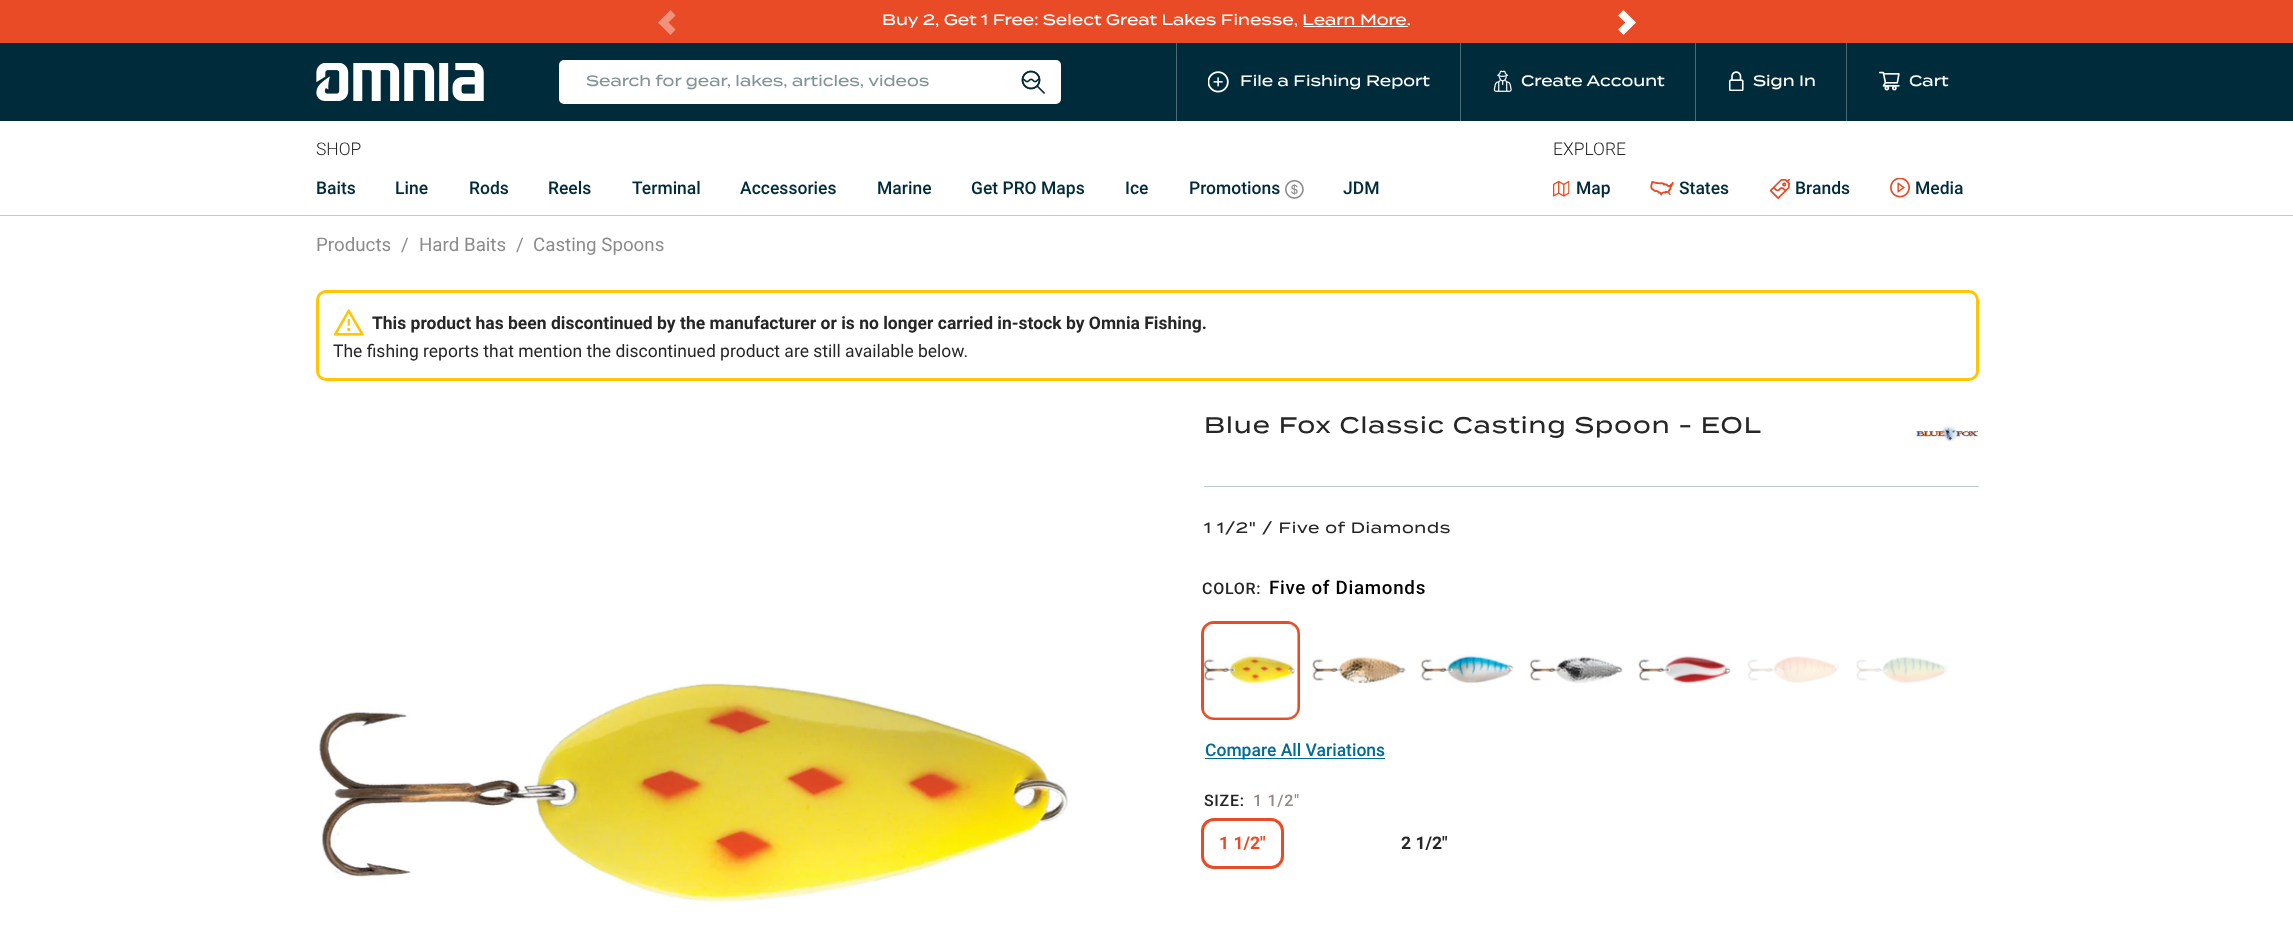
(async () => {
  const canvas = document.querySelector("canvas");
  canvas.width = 2293;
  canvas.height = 947;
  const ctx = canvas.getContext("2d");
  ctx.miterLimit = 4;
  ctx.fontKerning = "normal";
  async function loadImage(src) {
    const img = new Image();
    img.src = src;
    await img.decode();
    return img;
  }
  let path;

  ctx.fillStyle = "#ffffff";
  ctx.fillRect(0, 0, 2293, 947);
  ctx.fillStyle = "#e84b25";
  ctx.fillRect(0, 0, 2293, 43);
  ctx.fillStyle = "#f1937c";
  path = new Path2D("M658 22.5L670.5 10L675.5 15.5L663.5 27.5Z");
  ctx.fill(path);
  path = new Path2D("M663.5 17.5L675.5 29.5L670.5 35L658 22.5Z");
  ctx.fill(path);
  ctx.fillStyle = "#ffffff";
  ctx.fillRect(1303, 26, 105, 1);
  path = new Path2D("M1623.5 10L1636 22.5L1630.5 27.5L1618 15.5Z");
  ctx.fill(path);
  path = new Path2D("M1618 29.5L1630.5 17.5L1636 22.5L1623.5 35Z");
  ctx.fill(path);
  ctx.fillStyle = "#002b3a";
  ctx.fillRect(0, 43, 2293, 78);
  ctx.drawImage(await loadImage("img/1.png"), 316, 63, 168, 38);
  ctx.fillStyle = "#ffffff";
  ctx.beginPath();
  ctx.roundRect(559, 60, 502, 44, 5);
  ctx.fill();
  ctx.drawImage(await loadImage("img/2.png"), 1021, 70, 24, 24);
  ctx.fillStyle = "#4d6b75";
  ctx.fillRect(1176, 43, 1, 78);
  ctx.drawImage(await loadImage("img/3.png"), 1208, 71, 21, 22);
  ctx.fillRect(1460, 43, 1, 78);
  ctx.drawImage(await loadImage("img/4.png"), 1493, 70, 19, 22);
  ctx.fillRect(1695, 43, 1, 78);
  ctx.drawImage(await loadImage("img/5.png"), 1728, 71, 16, 20);
  ctx.fillRect(1846, 43, 1, 78);
  ctx.drawImage(await loadImage("img/6.png"), 1879, 71, 21, 20);
  ctx.fillStyle = "#c1cbca";
  ctx.fillRect(0, 215, 2293, 1);
  ctx.drawImage(await loadImage("img/7.png"), 1285, 180, 19, 19);
  ctx.drawImage(await loadImage("img/8.png"), 1553, 181, 17, 16);
  ctx.drawImage(await loadImage("img/9.png"), 1650, 181, 24, 15);
  ctx.drawImage(await loadImage("img/10.png"), 1770, 179, 20, 20);
  ctx.drawImage(await loadImage("img/11.png"), 1890, 178, 20, 20);
  ctx.beginPath();
  ctx.roundRect(317.5, 291.5, 1660, 88, 8.5);
  ctx.strokeStyle = "#ffc500";
  ctx.lineWidth = 3;
  ctx.stroke();
  ctx.drawImage(await loadImage("img/12.png"), 334, 309, 30, 27);
  ctx.drawImage(await loadImage("img/13.png"), 1916, 426, 63, 16);
  ctx.fillRect(1204, 486, 775, 1);
  ctx.drawImage(await loadImage("img/14.png"), 319, 683, 749, 219);
  ctx.beginPath();
  ctx.roundRect(1202.5, 622.5, 96, 96, 11.5);
  ctx.strokeStyle = "#e84b25";
  ctx.stroke();
  ctx.drawImage(await loadImage("img/15.png"), 1204, 624, 94, 94);
  ctx.drawImage(await loadImage("img/16.png"), 1312, 656, 94, 28);
  ctx.drawImage(await loadImage("img/17.png"), 1420, 654, 94, 30);
  ctx.drawImage(await loadImage("img/18.png"), 1529, 656, 94, 28);
  ctx.drawImage(await loadImage("img/19.png"), 1638, 654, 93, 30);
  ctx.drawImage(await loadImage("img/20.png"), 1747, 656, 92, 27);
  ctx.drawImage(await loadImage("img/21.png"), 1856, 656, 92, 27);
  ctx.fillStyle = "#006b99";
  ctx.fillRect(1205, 758, 180, 1);
  ctx.beginPath();
  ctx.roundRect(1202.5, 819.5, 80, 48, 11.5);
  ctx.stroke();
  ctx.font = "500 15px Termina";
  ctx.fillStyle = "#ffffff";
  ctx.fillText("Buy 2, Get 1 Free: Select Great Lakes Finesse, Learn More.", 882, 25);
  ctx.fillStyle = "#829498";
  ctx.fillText("Search for gear, lakes, articles, videos", 586, 86);
  ctx.fillStyle = "#ffffff";
  for (const [text, x, y] of [
    ["File a Fishing Report", 1240, 86],
    ["Create Account", 1521, 86],
    ["Sign In", 1753, 86],
    ["Cart", 1909, 86],
  ]) {
    ctx.fillText(text, x, y);
  }
  ctx.font = "300 17.5px Roboto";
  ctx.fillStyle = "#262626";
  ctx.fillText("SHOP", 316, 155);
  ctx.font = "500 17.5px Roboto";
  ctx.fillStyle = "#002b3a";
  for (const [text, x, y] of [
    ["Baits", 316, 194],
    ["Line", 395, 194],
    ["Rods", 469, 194],
    ["Reels", 548, 194],
    ["Terminal", 632, 194],
    ["Accessories", 740, 194],
    ["Marine", 877, 194],
    ["Get PRO Maps", 971, 194],
    ["Ice", 1125, 194],
    ["Promotions", 1189, 194],
    ["JDM", 1343, 194],
  ]) {
    ctx.fillText(text, x, y);
  }
  ctx.font = "300 17.5px Roboto";
  ctx.fillStyle = "#262626";
  ctx.fillText("EXPLORE", 1553, 155);
  ctx.font = "500 17.5px Roboto";
  ctx.fillStyle = "#002b3a";
  for (const [text, x, y] of [
    ["Map", 1576, 194],
    ["States", 1679, 194],
    ["Brands", 1795, 194],
    ["Media", 1915, 194],
  ]) {
    ctx.fillText(text, x, y);
  }
  ctx.font = "18.75px Roboto";
  ctx.fillStyle = "#8c8c8c";
  for (const [text, x, y] of [
    ["Products", 316, 251],
    ["/", 401, 251],
    ["Hard Baits", 419, 251],
    ["/", 516, 251],
    ["Casting Spoons", 533, 251],
  ]) {
    ctx.fillText(text, x, y);
  }
  ctx.font = "bold 17.5px Roboto";
  ctx.fillStyle = "#262626";
  ctx.fillText("This product has been discontinued by the manufacturer or is no longer carried in-stock by Omnia Fishing.", 372, 329);
  ctx.font = "17.5px Roboto";
  ctx.fillText("The fishing reports that mention the discontinued product are still available below.", 333, 357);
  ctx.letterSpacing = "1.05px";
  ctx.font = "500 22.5px Termina";
  ctx.fillText("Blue Fox Classic Casting Spoon - EOL", 1204, 433);
  ctx.letterSpacing = "0.7px";
  ctx.font = "500 15px Termina";
  ctx.fillText("1 1/2\" / Five of Diamonds", 1204, 533);
  ctx.font = "500 16px Roboto";
  ctx.fillText("COLOR:", 1202, 594);
  ctx.font = "500 18.75px Roboto";
  ctx.fillStyle = "#000000";
  ctx.fillText("Five of Diamonds", 1269, 594);
  ctx.letterSpacing = "0px";
  ctx.font = "500 17.5px Roboto";
  ctx.fillStyle = "#006b99";
  ctx.fillText("Compare All Variations", 1205, 756);
  ctx.letterSpacing = "0.7px";
  ctx.font = "500 16px Roboto";
  ctx.fillStyle = "#262626";
  ctx.fillText("SIZE:", 1204, 806);
  ctx.fillStyle = "#938883";
  ctx.fillText("1 1/2\"", 1253, 806);
  ctx.letterSpacing = "0px";
  ctx.font = "bold 17.5px Roboto";
  ctx.fillStyle = "#e84b25";
  ctx.fillText("1 1/2\"", 1219, 849);
  ctx.fillStyle = "#262626";
  ctx.fillText("2 1/2\"", 1401, 849);
})();
